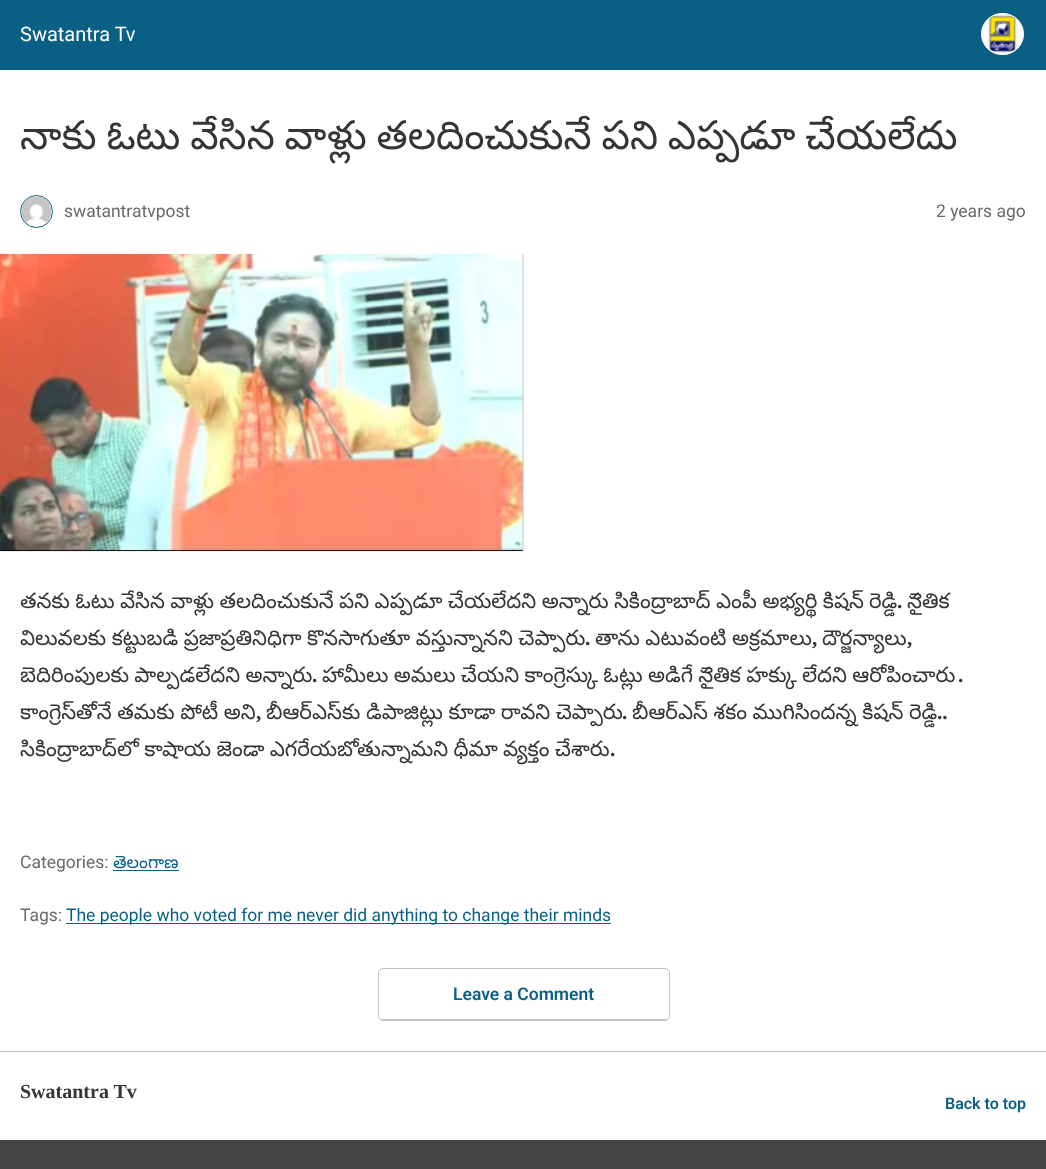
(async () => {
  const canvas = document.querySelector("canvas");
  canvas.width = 1046;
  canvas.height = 1169;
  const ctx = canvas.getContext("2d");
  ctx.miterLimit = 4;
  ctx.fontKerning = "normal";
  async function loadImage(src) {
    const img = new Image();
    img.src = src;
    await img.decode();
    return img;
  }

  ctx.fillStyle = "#ffffff";
  ctx.fillRect(0, 0, 1046, 1169);
  ctx.fillStyle = "#0a5f85";
  ctx.fillRect(0, 0, 1046, 70);
  ctx.fillStyle = "#ffffff";
  ctx.beginPath();
  ctx.roundRect(981.5, 13.5, 42, 41, 20.5);
  ctx.fill();
  ctx.strokeStyle = "#ffffff";
  ctx.stroke();
  ctx.drawImage(await loadImage("img/1.png"), 988, 15, 29, 38);
  ctx.beginPath();
  ctx.arc(36.5, 211.5, 16, 0, Math.PI * 2);
  ctx.strokeStyle = "#0a5f85";
  ctx.stroke();
  ctx.drawImage(await loadImage("img/2.png"), 21, 196, 30, 29);
  ctx.drawImage(await loadImage("img/3.png"), 0, 253, 524, 299);
  ctx.fillStyle = "#0a5f85";
  ctx.fillRect(113, 870, 66, 1);
  ctx.fillRect(66, 923, 545, 1);
  ctx.beginPath();
  ctx.roundRect(378.5, 968.5, 291, 52, 4.5);
  ctx.strokeStyle = "#c2c2c2";
  ctx.stroke();
  for (const [x, y, w, h, color] of [
    [380, 1019, 288, 1, "#c2c2c2"],
    [0, 1051, 1046, 1, "#c2c2c2"],
    [0, 1140, 1046, 29, "#444444"],
  ]) {
    ctx.fillStyle = color;
    ctx.fillRect(x, y, w, h);
  }
  ctx.font = "20px Roboto";
  ctx.fillStyle = "#ffffff";
  ctx.fillText("Swatantra Tv", 20, 41);
  ctx.wordSpacing = "-1.5px";
  ctx.font = "40px Noto Sans Telugu";
  ctx.fillStyle = "#353535";
  ctx.fillText("నాకు ఓటు వేసిన వాళ్లు తలదించుకునే పని ఎప్పడూ చేయలేదు", 20, 149);
  ctx.wordSpacing = "0px";
  ctx.font = "17.5px Roboto";
  ctx.fillStyle = "#696969";
  ctx.fillText("swatantratvpost", 64, 217);
  ctx.fillText("2 years ago", 936, 217);
  ctx.wordSpacing = "-0.6px";
  ctx.font = "21.25px Noto Sans Telugu";
  ctx.fillStyle = "#353535";
  ctx.fillText("తనకు ఓటు వేసిన వాళ్లు తలదించుకునే పని ఎప్పడూ చేయలేదని అన్నారు సికింద్రాబాద్ ఎంపీ అభ్యర్థి కిషన్", 20, 608);
  ctx.wordSpacing = "0px";
  ctx.fillText("రెడ్డి", 869, 608);
  ctx.font = "bold 21.25px Liberation Serif";
  ctx.fillText(".", 897, 608);
  ctx.font = "21.25px Noto Sans Telugu";
  ctx.fillText("నైతిక", 907, 608);
  ctx.wordSpacing = "-0.5px";
  ctx.fillText("విలువలకు కట్టుబడి ప్రజాప్రతినిధిగా కొనసాగుతూ వస్తున్నానని చెప్పారు", 20, 645);
  ctx.wordSpacing = "0px";
  ctx.font = "bold 21.25px Liberation Serif";
  ctx.fillText(".", 585, 645);
  ctx.wordSpacing = "-0.5px";
  ctx.font = "21.25px Noto Sans Telugu";
  ctx.fillText("తాను ఎటువంటి అక్రమాలు", 595, 645);
  ctx.wordSpacing = "0px";
  ctx.font = "bold 21.25px Liberation Serif";
  ctx.fillText(",", 812, 645);
  ctx.font = "21.25px Noto Sans Telugu";
  ctx.fillText("దౌర్జన్యాలు", 822, 645);
  ctx.font = "bold 21.25px Liberation Serif";
  ctx.fillText(",", 907, 645);
  ctx.wordSpacing = "-0.75px";
  ctx.font = "21.25px Noto Sans Telugu";
  ctx.fillText("బెదిరింపులకు పాల్పడలేదని అన్నారు", 20, 682);
  ctx.wordSpacing = "0px";
  ctx.font = "bold 21.25px Liberation Serif";
  ctx.fillText(".", 312, 682);
  ctx.wordSpacing = "-0.75px";
  ctx.font = "21.25px Noto Sans Telugu";
  ctx.fillText("హామీలు అమలు చేయని కాంగ్రెస్కు ఓట్లు అడిగే నైతిక హక్కు లేదని ఆరోపించారు", 322, 682);
  ctx.wordSpacing = "0px";
  ctx.font = "bold 21.25px Liberation Serif";
  ctx.fillText(".", 958, 682);
  ctx.font = "21.25px Noto Sans Telugu";
  ctx.fillText("కాంగ్రెస్", 20, 719);
  ctx.wordSpacing = "-0.5px";
  ctx.fillText("తోనే తమకు పోటీ అని", 76, 719);
  ctx.wordSpacing = "0px";
  ctx.font = "bold 21.25px Liberation Serif";
  ctx.fillText(",", 256, 719);
  ctx.font = "21.25px Noto Sans Telugu";
  ctx.fillText("బీఆర్ఎస్", 266, 719);
  ctx.wordSpacing = "-0.5px";
  ctx.fillText("కు డిపాజిట్లు కూడా రావని చెప్పారు", 342, 719);
  ctx.wordSpacing = "0px";
  ctx.font = "bold 21.25px Liberation Serif";
  ctx.fillText(".", 622, 719);
  ctx.wordSpacing = "-0.5px";
  ctx.font = "21.25px Noto Sans Telugu";
  ctx.fillText("బీఆర్ఎస్ శకం ముగిసిందన్న కిషన్", 632, 719);
  ctx.wordSpacing = "0px";
  ctx.fillText("రెడ్డి", 909, 719);
  ctx.font = "bold 21.25px Liberation Serif";
  ctx.fillText("..", 937, 719);
  ctx.font = "21.25px Noto Sans Telugu";
  ctx.fillText("సికింద్రాబాద్", 20, 756);
  ctx.wordSpacing = "-0.75px";
  ctx.fillText("లో కాషాయ జెండా ఎగరేయబోతున్నామని ధీమా వ్యక్తం చేశారు", 117, 756);
  ctx.wordSpacing = "0px";
  ctx.font = "bold 21.25px Liberation Serif";
  ctx.fillText(".", 610, 756);
  ctx.font = "17.5px Roboto";
  ctx.fillStyle = "#696969";
  ctx.fillText("Categories:", 20, 868);
  ctx.font = "17.5px Noto Sans Telugu";
  ctx.fillStyle = "#0a5f85";
  ctx.fillText("తెలంగాణ", 113, 868);
  ctx.font = "17.5px Roboto";
  ctx.fillStyle = "#696969";
  ctx.fillText("Tags:", 20, 921);
  ctx.fillStyle = "#0a5f85";
  ctx.fillText("The people who voted for me never did anything to change their minds", 66, 921);
  ctx.font = "600 17.5px Roboto";
  ctx.fillText("Leave a Comment", 453, 1000);
  ctx.font = "bold 20px Liberation Serif";
  ctx.fillStyle = "#353535";
  ctx.fillText("Swatantra Tv", 20, 1098);
  ctx.font = "600 16px Roboto";
  ctx.fillStyle = "#0a5f85";
  ctx.fillText("Back to top", 945, 1109);
})();
